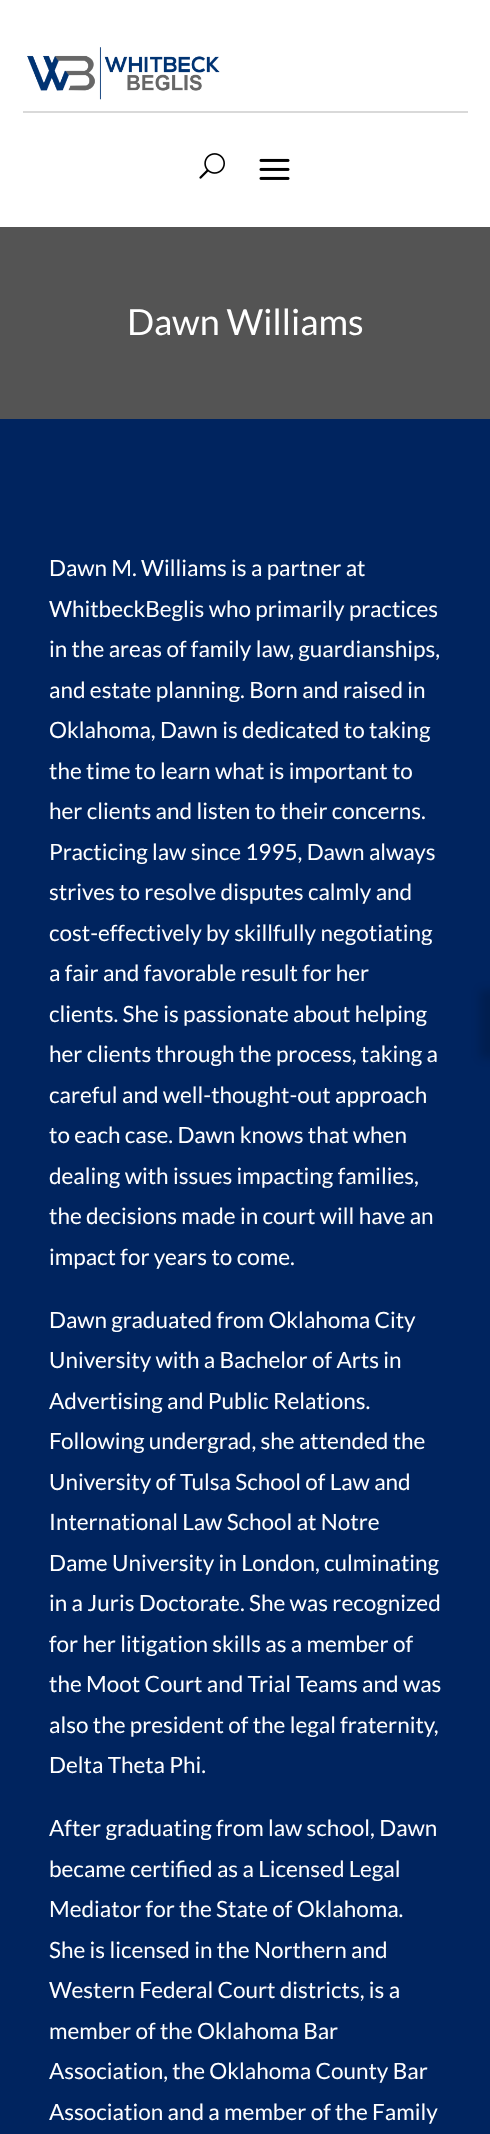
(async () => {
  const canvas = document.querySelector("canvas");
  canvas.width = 490;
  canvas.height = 2134;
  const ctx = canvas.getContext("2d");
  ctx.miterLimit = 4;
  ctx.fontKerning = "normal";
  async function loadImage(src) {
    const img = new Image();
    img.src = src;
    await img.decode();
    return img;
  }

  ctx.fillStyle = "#ffffff";
  ctx.fillRect(0, 0, 490, 2134);
  ctx.drawImage(await loadImage("img/1.png"), 27, 47, 193, 53);
  ctx.fillStyle = "#d9d9d9";
  ctx.fillRect(23, 111, 445, 2);
  ctx.drawImage(await loadImage("img/2.png"), 199, 153, 26, 26);
  ctx.drawImage(await loadImage("img/3.png"), 259, 158, 31, 22);
  ctx.fillStyle = "#545454";
  ctx.fillRect(0, 227, 490, 192);
  ctx.fillStyle = "#00245f";
  ctx.fillRect(0, 419, 490, 1715);
  ctx.fillStyle = "rgba(0, 0, 0, 0.16)";
  ctx.filter = "blur(4.5px)";
  ctx.beginPath();
  ctx.rect(480, 990, 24, 68);
  ctx.fill();
  ctx.filter = "none";
  ctx.font = "36px Lato";
  ctx.fillStyle = "#ffffff";
  ctx.fillText("Dawn Williams", 127, 335);
  ctx.font = "22.5px Lato";
  for (const [text, x, y] of [
    ["Dawn M. Williams is a partner at", 49, 576],
    ["WhitbeckBeglis who primarily practices", 49, 617],
    ["in the areas of family law, guardianships,", 49, 657],
    ["and estate planning. Born and raised in", 49, 698],
    ["Oklahoma, Dawn is dedicated to taking", 49, 738],
    ["the time to learn what is important to", 49, 779],
    ["her clients and listen to their concerns.", 49, 819],
    ["Practicing law since 1995, Dawn always", 49, 860],
    ["strives to resolve disputes calmly and", 49, 900],
    ["cost-effectively by skillfully negotiating", 49, 941],
    ["a fair and favorable result for her", 49, 981],
    ["clients. She is passionate about helping", 49, 1022],
    ["her clients through the process, taking a", 49, 1062],
    ["careful and well-thought-out approach", 49, 1103],
    ["to each case. Dawn knows that when", 49, 1143],
    ["dealing with issues impacting families,", 49, 1184],
    ["the decisions made in court will have an", 49, 1224],
    ["impact for years to come.", 49, 1265],
    ["Dawn graduated from Oklahoma City", 49, 1328],
    ["University with a Bachelor of Arts in", 49, 1368],
    ["Advertising and Public Relations.", 49, 1409],
    ["Following undergrad, she attended the", 49, 1449],
    ["University of Tulsa School of Law and", 49, 1490],
    ["International Law School at Notre", 49, 1530],
    ["Dame University in London, culminating", 49, 1571],
    ["in a Juris Doctorate. She was recognized", 49, 1611],
    ["for her litigation skills as a member of", 49, 1652],
    ["the Moot Court and Trial Teams and was", 49, 1692],
    ["also the president of the legal fraternity,", 49, 1733],
    ["Delta Theta Phi.", 49, 1773],
    ["After graduating from law school, Dawn", 49, 1836],
    ["became certified as a Licensed Legal", 49, 1877],
    ["Mediator for the State of Oklahoma.", 49, 1917],
    ["She is licensed in the Northern and", 49, 1958],
    ["Western Federal Court districts, is a", 49, 1998],
    ["member of the Oklahoma Bar", 49, 2039],
    ["Association, the Oklahoma County Bar", 49, 2079],
    ["Association and a member of the Family", 49, 2120],
  ]) {
    ctx.fillText(text, x, y);
  }
})();
